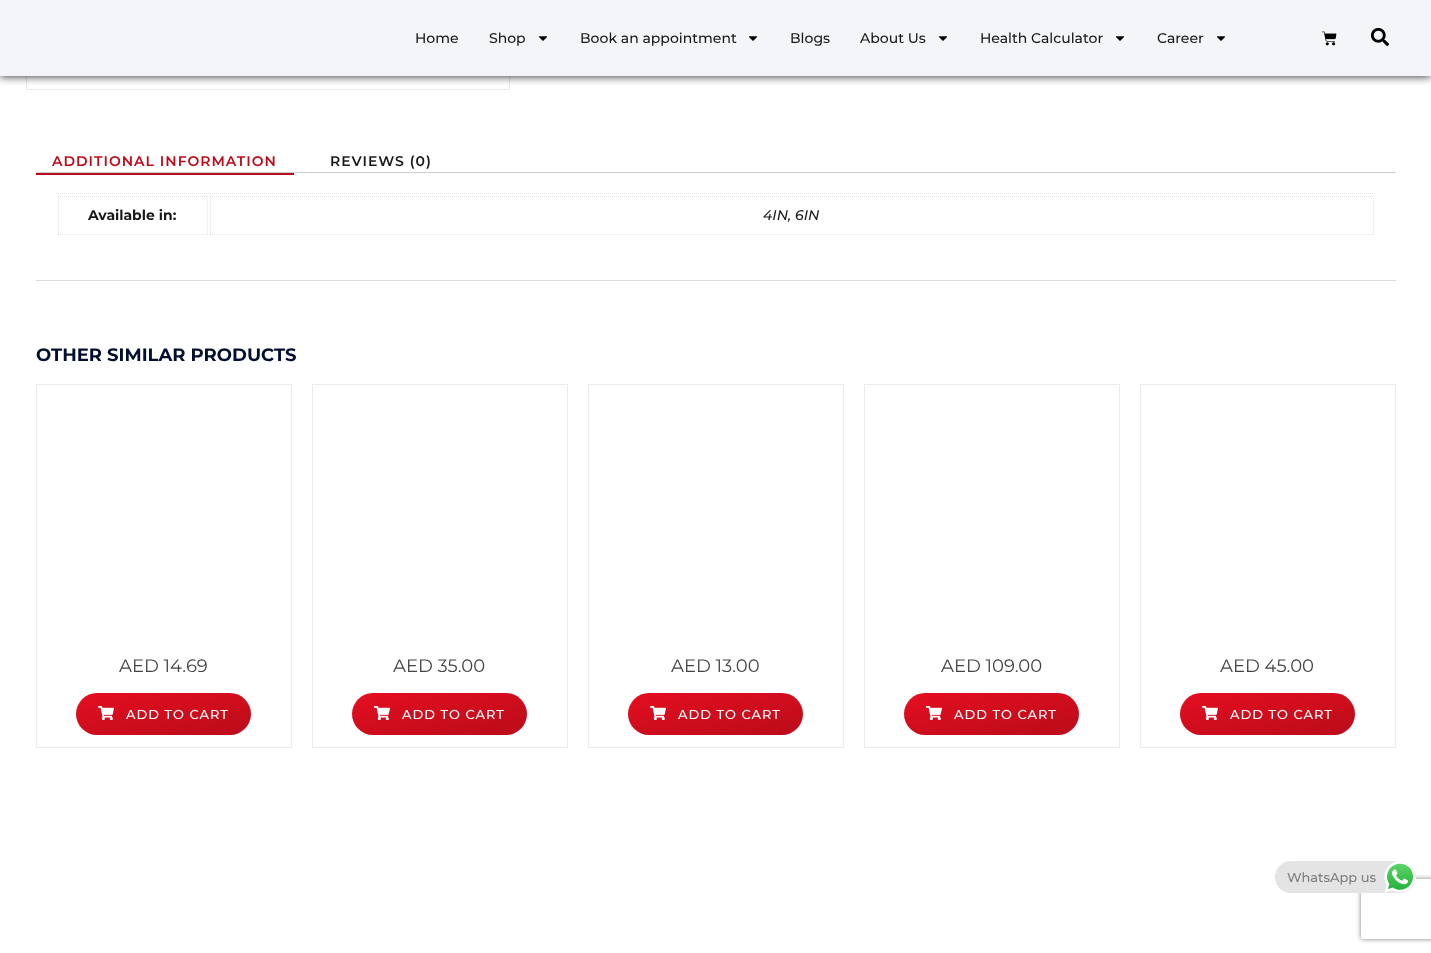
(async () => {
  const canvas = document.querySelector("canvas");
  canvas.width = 1431;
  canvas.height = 953;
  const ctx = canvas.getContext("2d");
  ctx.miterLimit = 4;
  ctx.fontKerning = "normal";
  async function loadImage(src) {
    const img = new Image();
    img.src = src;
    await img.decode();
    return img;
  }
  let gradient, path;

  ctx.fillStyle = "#ffffff";
  ctx.fillRect(0, 0, 1431, 953);
  ctx.strokeStyle = "#ebebeb";
  ctx.strokeRect(26.5, -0.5, 483, 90);
  ctx.fillStyle = "rgba(0, 0, 0, 0.9)";
  ctx.filter = "blur(5px)";
  ctx.beginPath();
  ctx.rect(0, 0, 1431, 76);
  ctx.fill();
  ctx.filter = "none";
  ctx.fillStyle = "#f4f5f8";
  ctx.fillRect(0, 0, 1431, 76);
  ctx.drawImage(await loadImage("img/1.png"), 539, 36, 8, 5);
  ctx.drawImage(await loadImage("img/1.png"), 749, 36, 8, 5);
  ctx.drawImage(await loadImage("img/1.png"), 939, 36, 8, 5);
  ctx.drawImage(await loadImage("img/1.png"), 1116, 36, 8, 5);
  ctx.drawImage(await loadImage("img/1.png"), 1217, 36, 8, 5);
  ctx.drawImage(await loadImage("img/2.png"), 1322, 31, 15, 15);
  ctx.drawImage(await loadImage("img/3.png"), 1371, 28, 18, 18);
  for (const [x, y, w, h, color] of [
    [36, 280, 1360, 1, "#dbdbdb"],
    [36, 173, 258, 2, "#ba0c1a"],
    [36, 172, 1360, 1, "#d3ced2"],
  ]) {
    ctx.fillStyle = color;
    ctx.fillRect(x, y, w, h);
  }
  path = new Path2D("M56 193.5H1376");
  ctx.strokeStyle = "#e6e6e6";
  ctx.setLineDash([1, 1]);
  ctx.stroke(path);
  path = new Path2D("M58 196.5H208");
  ctx.stroke(path);
  path = new Path2D("M207.5 196V235");
  ctx.stroke(path);
  path = new Path2D("M58 234.5H208");
  ctx.stroke(path);
  path = new Path2D("M58.5 196V235");
  ctx.strokeStyle = "rgba(0, 0, 0, 0.1)";
  ctx.stroke(path);
  path = new Path2D("M210 196.5H1374");
  ctx.strokeStyle = "#e6e6e6";
  ctx.stroke(path);
  path = new Path2D("M1373.5 196V235");
  ctx.stroke(path);
  path = new Path2D("M210 234.5H1374");
  ctx.stroke(path);
  path = new Path2D("M210.5 196V235");
  ctx.strokeStyle = "rgba(0, 0, 0, 0.1)";
  ctx.stroke(path);
  ctx.strokeStyle = "#ebebeb";
  ctx.setLineDash([]);
  ctx.strokeRect(36.5, 384.5, 255, 363);
  gradient = ctx.createLinearGradient(171, 751, 156, 677);
  gradient.addColorStop(0, "#ba0c1a");
  gradient.addColorStop(1, "#e40e20");
  ctx.fillStyle = gradient;
  ctx.beginPath();
  ctx.roundRect(76, 693, 175, 42, 21);
  ctx.fill();
  ctx.drawImage(await loadImage("img/4.png"), 98, 706, 16, 14);
  ctx.strokeRect(312.5, 384.5, 255, 363);
  gradient = ctx.createLinearGradient(447, 751, 432, 677);
  gradient.addColorStop(0, "#ba0c1a");
  gradient.addColorStop(1, "#e40e20");
  ctx.fillStyle = gradient;
  ctx.beginPath();
  ctx.roundRect(352, 693, 175, 42, 21);
  ctx.fill();
  ctx.drawImage(await loadImage("img/4.png"), 374, 706, 16, 14);
  ctx.strokeRect(588.5, 384.5, 255, 363);
  gradient = ctx.createLinearGradient(723, 751, 708, 677);
  gradient.addColorStop(0, "#ba0c1a");
  gradient.addColorStop(1, "#e40e20");
  ctx.fillStyle = gradient;
  ctx.beginPath();
  ctx.roundRect(628, 693, 175, 42, 21);
  ctx.fill();
  ctx.drawImage(await loadImage("img/4.png"), 650, 706, 16, 14);
  ctx.strokeRect(864.5, 384.5, 255, 363);
  gradient = ctx.createLinearGradient(999, 751, 984, 677);
  gradient.addColorStop(0, "#ba0c1a");
  gradient.addColorStop(1, "#e40e20");
  ctx.fillStyle = gradient;
  ctx.beginPath();
  ctx.roundRect(904, 693, 175, 42, 21);
  ctx.fill();
  ctx.drawImage(await loadImage("img/4.png"), 926, 706, 16, 14);
  ctx.strokeRect(1140.5, 384.5, 255, 363);
  gradient = ctx.createLinearGradient(1275, 751, 1260, 677);
  gradient.addColorStop(0, "#ba0c1a");
  gradient.addColorStop(1, "#e40e20");
  ctx.fillStyle = gradient;
  ctx.beginPath();
  ctx.roundRect(1180, 693, 175, 42, 21);
  ctx.fill();
  ctx.drawImage(await loadImage("img/4.png"), 1202, 706, 16, 14);
  ctx.save();
  path = new Path2D("M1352 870H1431V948H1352ZM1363 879H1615C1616 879 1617 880 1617 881V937C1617 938 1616 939 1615 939H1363C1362 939 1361 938 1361 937V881C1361 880 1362 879 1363 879Z");
  ctx.clip(path, "evenodd");
  ctx.fillStyle = "#808080";
  ctx.filter = "blur(2.5px)";
  ctx.beginPath();
  ctx.roundRect(1361, 879, 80, 60, 2);
  ctx.fill();
  ctx.filter = "none";
  ctx.restore();
  ctx.fillStyle = "#e4e4e4";
  ctx.beginPath();
  ctx.roundRect(1275, 861, 141, 32, 16);
  ctx.fill();
  ctx.drawImage(await loadImage("img/5.png"), 1384, 861, 32, 32);
  ctx.font = "500 14px Montserrat";
  ctx.fillStyle = "#181818";
  for (const [text, x, y] of [
    ["Home", 415, 43],
    ["Shop", 489, 43],
    ["Book an appointment", 580, 43],
    ["Blogs", 790, 43],
    ["About Us", 860, 43],
    ["Health Calculator", 980, 43],
    ["Career", 1157, 43],
  ]) {
    ctx.fillText(text, x, y);
  }
  ctx.letterSpacing = "1px";
  ctx.font = "600 14px Montserrat";
  ctx.fillStyle = "#ba0c1a";
  ctx.fillText("ADDITIONAL INFORMATION", 52, 166);
  ctx.fillStyle = "#181818";
  ctx.fillText("REVIEWS (0)", 330, 166);
  ctx.letterSpacing = "0px";
  ctx.font = "bold 14px Montserrat";
  ctx.fillText("Available in:", 88, 220);
  ctx.font = "italic 500 14px Montserrat";
  ctx.fillText("4IN, 6IN", 763, 220);
  ctx.font = "bold 18px Montserrat";
  ctx.fillStyle = "#00102e";
  ctx.fillText("OTHER SIMILAR PRODUCTS", 36, 361);
  ctx.font = "18px Montserrat";
  ctx.fillStyle = "#444444";
  ctx.fillText("AED 14.69", 119, 672);
  ctx.letterSpacing = "1px";
  ctx.font = "500 13px Montserrat";
  ctx.fillStyle = "#ffffff";
  ctx.fillText("ADD TO CART", 126, 719);
  ctx.letterSpacing = "0px";
  ctx.font = "18px Montserrat";
  ctx.fillStyle = "#444444";
  ctx.fillText("AED 35.00", 393, 672);
  ctx.letterSpacing = "1px";
  ctx.font = "500 13px Montserrat";
  ctx.fillStyle = "#ffffff";
  ctx.fillText("ADD TO CART", 402, 719);
  ctx.letterSpacing = "0px";
  ctx.font = "18px Montserrat";
  ctx.fillStyle = "#444444";
  ctx.fillText("AED 13.00", 671, 672);
  ctx.letterSpacing = "1px";
  ctx.font = "500 13px Montserrat";
  ctx.fillStyle = "#ffffff";
  ctx.fillText("ADD TO CART", 678, 719);
  ctx.letterSpacing = "0px";
  ctx.font = "18px Montserrat";
  ctx.fillStyle = "#444444";
  ctx.fillText("AED 109.00", 941, 672);
  ctx.letterSpacing = "1px";
  ctx.font = "500 13px Montserrat";
  ctx.fillStyle = "#ffffff";
  ctx.fillText("ADD TO CART", 954, 719);
  ctx.letterSpacing = "0px";
  ctx.font = "18px Montserrat";
  ctx.fillStyle = "#444444";
  ctx.fillText("AED 45.00", 1220, 672);
  ctx.letterSpacing = "1px";
  ctx.font = "500 13px Montserrat";
  ctx.fillStyle = "#ffffff";
  ctx.fillText("ADD TO CART", 1230, 719);
  ctx.letterSpacing = "0px";
  ctx.fillStyle = "#7f7d7d";
  ctx.fillText("WhatsApp us", 1287, 882);
})();
